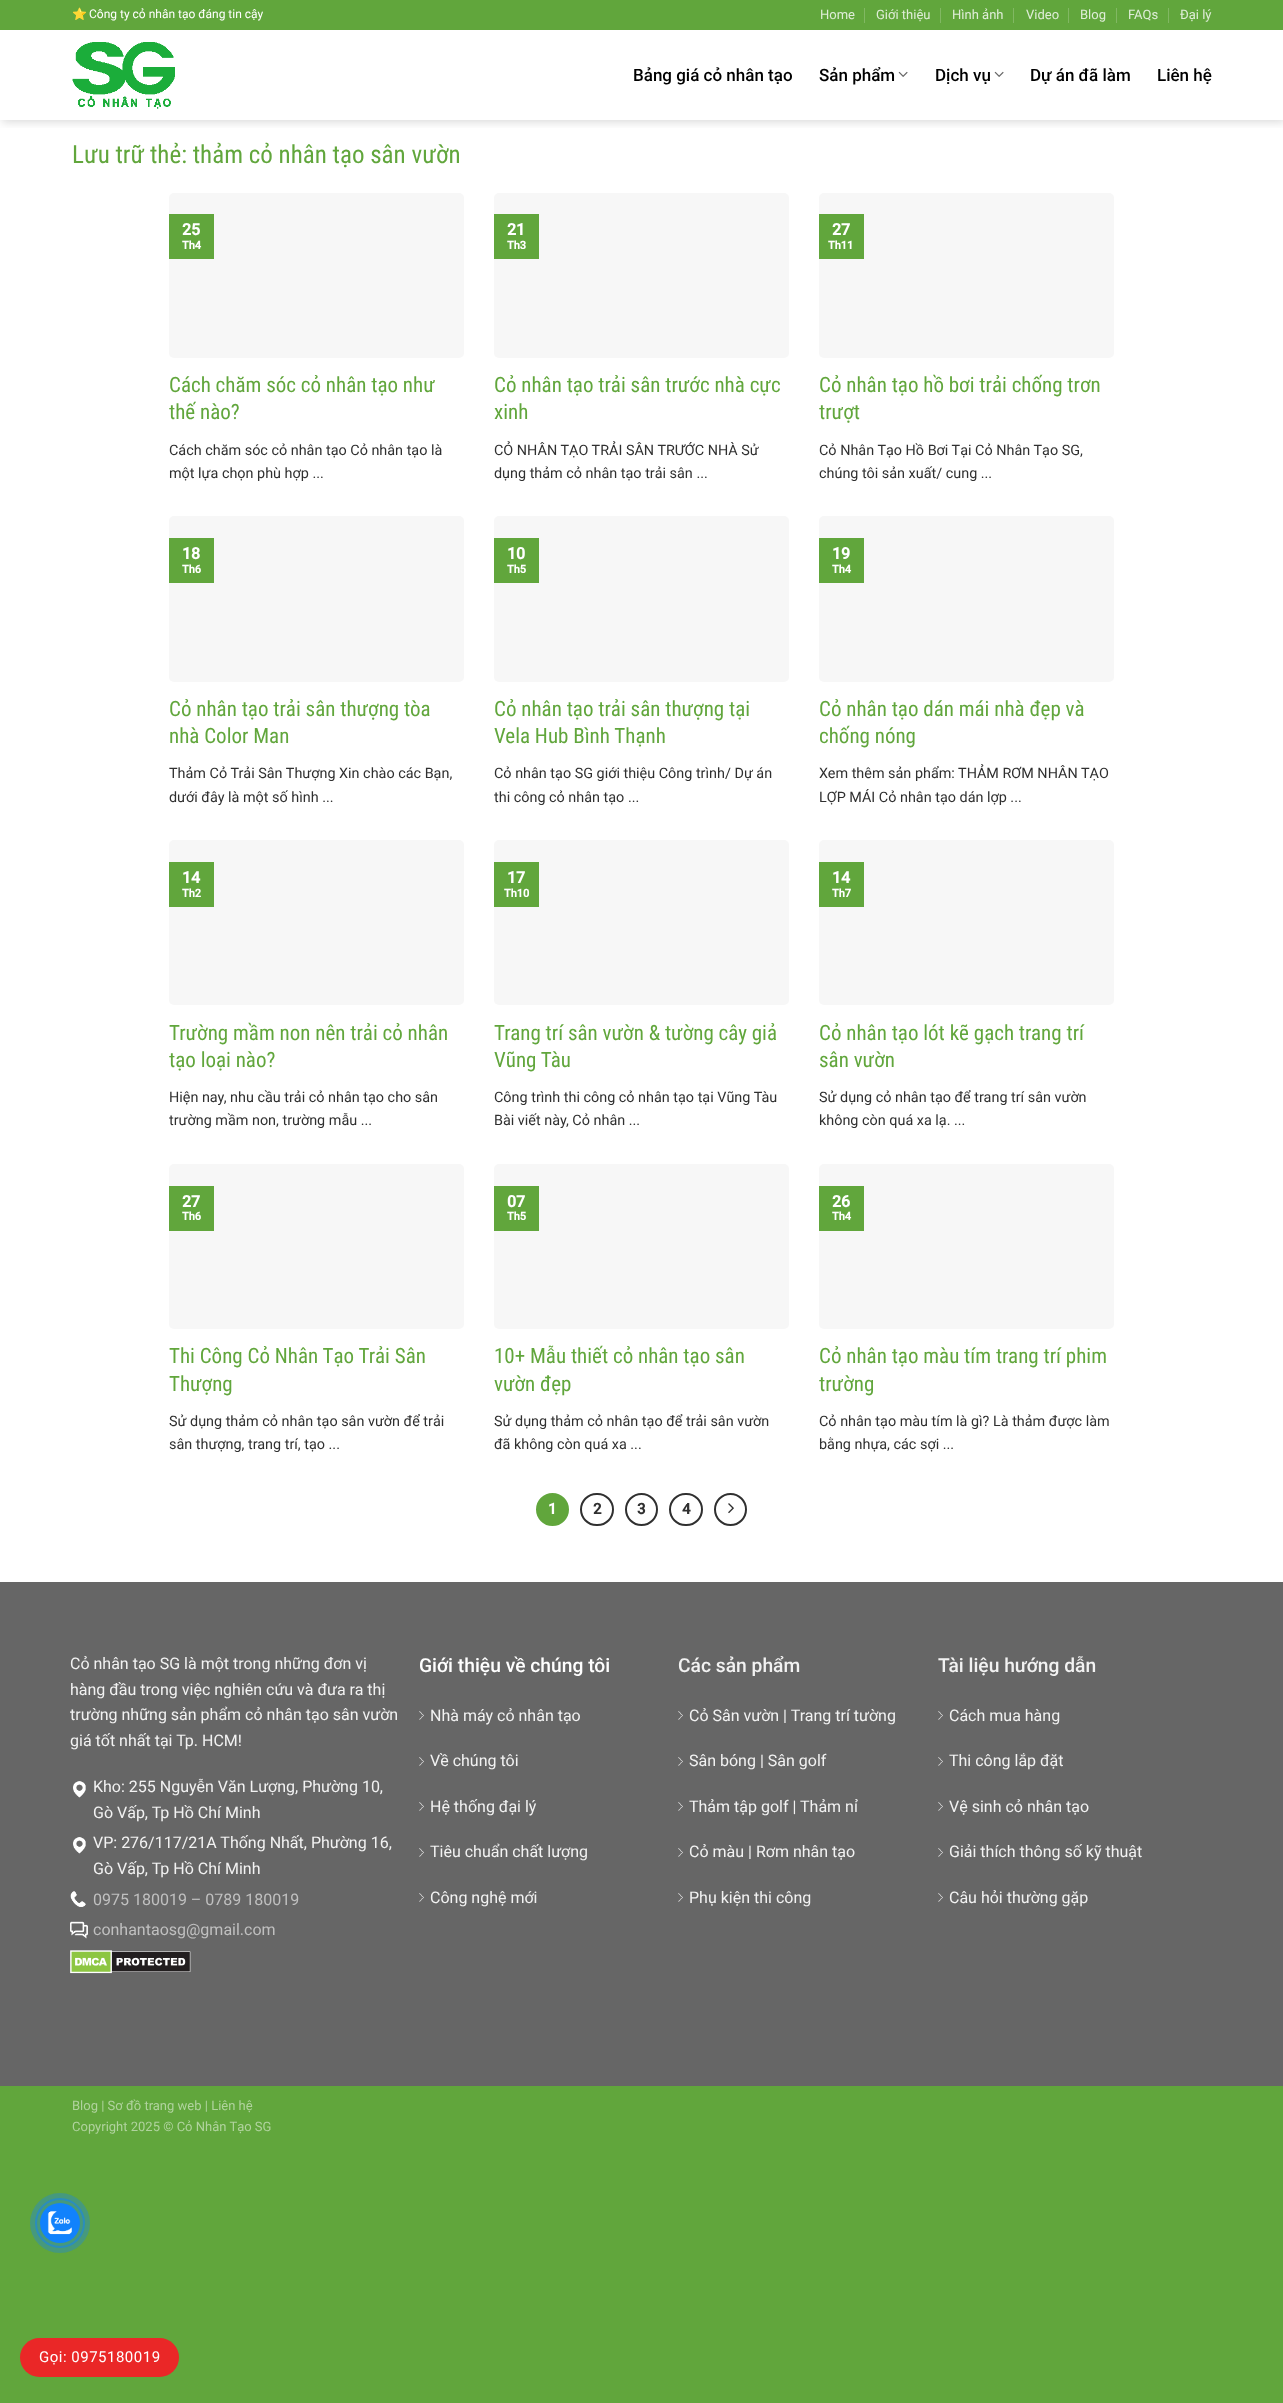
(async () => {
  const canvas = document.querySelector("canvas");
  canvas.width = 1283;
  canvas.height = 2403;
  const ctx = canvas.getContext("2d");
  ctx.miterLimit = 4;
  ctx.fontKerning = "normal";
  async function loadImage(src) {
    const img = new Image();
    img.src = src;
    await img.decode();
    return img;
  }

  ctx.fillStyle = "#61a63c";
  ctx.fillRect(0, 0, 1283, 2403);
  ctx.fillStyle = "#ffffff";
  ctx.fillRect(0, 30, 1283, 1552);
  ctx.save();
  ctx.beginPath();
  ctx.rect(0, 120, 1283, 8);
  ctx.clip();
  ctx.fillStyle = "rgba(0, 0, 0, 0.15)";
  ctx.filter = "blur(5px)";
  ctx.beginPath();
  ctx.rect(2, 32, 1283, 90);
  ctx.fill();
  ctx.filter = "none";
  ctx.restore();
  for (const [x, y, w, h, color] of [
    [0, 26, 1283, 4, "#61a63c"],
    [864, 8, 1, 15, "#81b863"],
    [940, 8, 1, 15, "#81b863"],
    [1013, 8, 1, 15, "#81b863"],
    [1068, 8, 1, 15, "#81b863"],
    [1116, 8, 1, 15, "#81b863"],
    [1168, 8, 1, 15, "#81b863"],
  ]) {
    ctx.fillStyle = color;
    ctx.fillRect(x, y, w, h);
  }
  ctx.drawImage(await loadImage("img/1.png"), 72, 42, 103, 67);
  ctx.drawImage(await loadImage("img/2.png"), 898, 71, 10, 6);
  ctx.drawImage(await loadImage("img/2.png"), 994, 71, 10, 6);
  ctx.fillStyle = "#f7f7f7";
  ctx.beginPath();
  ctx.roundRect(169, 193, 295, 165, 5);
  ctx.fill();
  ctx.fillStyle = "#61a63c";
  ctx.fillRect(169, 214, 45, 45);
  ctx.fillStyle = "#f7f7f7";
  ctx.beginPath();
  ctx.roundRect(494, 193, 295, 165, 5);
  ctx.fill();
  ctx.fillStyle = "#61a63c";
  ctx.fillRect(494, 214, 45, 45);
  ctx.fillStyle = "#f7f7f7";
  ctx.beginPath();
  ctx.roundRect(819, 193, 295, 165, 5);
  ctx.fill();
  ctx.fillStyle = "#61a63c";
  ctx.fillRect(819, 214, 45, 45);
  ctx.fillStyle = "#f7f7f7";
  ctx.beginPath();
  ctx.roundRect(169, 516, 295, 166, 5);
  ctx.fill();
  ctx.fillStyle = "#61a63c";
  ctx.fillRect(169, 538, 45, 45);
  ctx.fillStyle = "#f7f7f7";
  ctx.beginPath();
  ctx.roundRect(494, 516, 295, 166, 5);
  ctx.fill();
  ctx.fillStyle = "#61a63c";
  ctx.fillRect(494, 538, 45, 45);
  ctx.fillStyle = "#f7f7f7";
  ctx.beginPath();
  ctx.roundRect(819, 516, 295, 166, 5);
  ctx.fill();
  ctx.fillStyle = "#61a63c";
  ctx.fillRect(819, 538, 45, 45);
  ctx.fillStyle = "#f7f7f7";
  ctx.beginPath();
  ctx.roundRect(169, 840, 295, 165, 5);
  ctx.fill();
  ctx.fillStyle = "#61a63c";
  ctx.fillRect(169, 862, 45, 45);
  ctx.fillStyle = "#f7f7f7";
  ctx.beginPath();
  ctx.roundRect(494, 840, 295, 165, 5);
  ctx.fill();
  ctx.fillStyle = "#61a63c";
  ctx.fillRect(494, 862, 45, 45);
  ctx.fillStyle = "#f7f7f7";
  ctx.beginPath();
  ctx.roundRect(819, 840, 295, 165, 5);
  ctx.fill();
  ctx.fillStyle = "#61a63c";
  ctx.fillRect(819, 862, 45, 45);
  ctx.fillStyle = "#f7f7f7";
  ctx.beginPath();
  ctx.roundRect(169, 1164, 295, 165, 5);
  ctx.fill();
  ctx.fillStyle = "#61a63c";
  ctx.fillRect(169, 1186, 45, 45);
  ctx.fillStyle = "#f7f7f7";
  ctx.beginPath();
  ctx.roundRect(494, 1164, 295, 165, 5);
  ctx.fill();
  ctx.fillStyle = "#61a63c";
  ctx.fillRect(494, 1186, 45, 45);
  ctx.fillStyle = "#f7f7f7";
  ctx.beginPath();
  ctx.roundRect(819, 1164, 295, 165, 5);
  ctx.fill();
  ctx.fillStyle = "#61a63c";
  ctx.fillRect(819, 1186, 45, 45);
  ctx.beginPath();
  ctx.arc(552.5, 1509.5, 15.5, 0, Math.PI * 2);
  ctx.fill();
  ctx.strokeStyle = "#61a63c";
  ctx.lineWidth = 2;
  ctx.stroke();
  ctx.beginPath();
  ctx.roundRect(581, 1494, 32, 31, 15.5);
  ctx.strokeStyle = "#303030";
  ctx.stroke();
  ctx.beginPath();
  ctx.arc(641.5, 1509.5, 15.5, 0, Math.PI * 2);
  ctx.stroke();
  ctx.beginPath();
  ctx.roundRect(670, 1494, 32, 31, 15.5);
  ctx.stroke();
  ctx.beginPath();
  ctx.arc(730.5, 1509.5, 15.5, 0, Math.PI * 2);
  ctx.stroke();
  ctx.drawImage(await loadImage("img/3.png"), 728, 1503, 6, 11);
  ctx.fillStyle = "#666666";
  ctx.fillRect(0, 1582, 1283, 504);
  ctx.drawImage(await loadImage("img/4.png"), 73, 1781, 13, 17);
  ctx.drawImage(await loadImage("img/5.png"), 73, 1837, 13, 17);
  ctx.drawImage(await loadImage("img/6.png"), 70, 1891, 16, 16);
  ctx.drawImage(await loadImage("img/7.png"), 70, 1921, 18, 18);
  ctx.drawImage(await loadImage("img/8.png"), 70, 1950, 121, 24);
  ctx.drawImage(await loadImage("img/9.png"), 419, 1711, 5, 9);
  ctx.drawImage(await loadImage("img/9.png"), 419, 1757, 5, 9);
  ctx.drawImage(await loadImage("img/9.png"), 419, 1802, 5, 9);
  ctx.drawImage(await loadImage("img/9.png"), 419, 1848, 5, 9);
  ctx.drawImage(await loadImage("img/9.png"), 419, 1893, 5, 9);
  ctx.drawImage(await loadImage("img/9.png"), 678, 1711, 5, 9);
  ctx.drawImage(await loadImage("img/9.png"), 678, 1757, 5, 9);
  ctx.drawImage(await loadImage("img/9.png"), 678, 1802, 5, 9);
  ctx.drawImage(await loadImage("img/9.png"), 678, 1848, 5, 9);
  ctx.drawImage(await loadImage("img/9.png"), 678, 1893, 5, 9);
  ctx.drawImage(await loadImage("img/10.png"), 938, 1711, 5, 9);
  ctx.drawImage(await loadImage("img/10.png"), 938, 1757, 5, 9);
  ctx.drawImage(await loadImage("img/10.png"), 938, 1802, 5, 9);
  ctx.drawImage(await loadImage("img/10.png"), 938, 1848, 5, 9);
  ctx.drawImage(await loadImage("img/10.png"), 938, 1893, 5, 9);
  ctx.beginPath();
  ctx.arc(60, 2223, 24, 0, Math.PI * 2);
  ctx.strokeStyle = "#39949c";
  ctx.stroke();
  ctx.fillStyle = "rgba(17, 130, 252, 0.34)";
  ctx.beginPath();
  ctx.arc(60, 2223, 30, 0, Math.PI * 2);
  ctx.fill();
  ctx.fillStyle = "#1182fc";
  ctx.beginPath();
  ctx.arc(60, 2223, 20, 0, Math.PI * 2);
  ctx.fill();
  ctx.drawImage(await loadImage("img/11.png"), 47, 2211, 25, 24);
  ctx.fillStyle = "#ea2727";
  ctx.beginPath();
  ctx.roundRect(20, 2338, 159, 39, 19.5);
  ctx.fill();
  ctx.font = "12px Noto Color Emoji";
  ctx.fillStyle = "#ffffff";
  ctx.fillText("⭐️", 72, 18);
  ctx.font = "12px Roboto";
  ctx.fillText("Công ty cỏ nhân tạo đáng tin cậy", 89, 18);
  ctx.font = "13px Roboto";
  ctx.fillStyle = "#dfedd8";
  for (const [text, x, y] of [
    ["Home", 820, 19],
    ["Giới thiệu", 876, 19],
    ["Hình ảnh", 952, 19],
    ["Video", 1026, 19],
    ["Blog", 1080, 19],
    ["FAQs", 1128, 19],
    ["Đại lý", 1180, 19],
  ]) {
    ctx.fillText(text, x, y);
  }
  ctx.font = "500 17px Roboto";
  ctx.fillStyle = "#000000";
  for (const [text, x, y] of [
    ["Bảng giá cỏ nhân tạo", 633, 81],
    ["Sản phẩm", 819, 81],
    ["Dịch vụ", 935, 81],
    ["Dự án đã làm", 1030, 81],
    ["Liên hệ", 1157, 81],
  ]) {
    ctx.fillText(text, x, y);
  }
  ctx.font = "25px Roboto Condensed";
  ctx.fillStyle = "#61a63c";
  ctx.fillText("Lưu trữ thẻ: thảm cỏ nhân tạo sân vườn", 72, 163);
  ctx.font = "bold 16px Roboto";
  ctx.fillStyle = "#ffffff";
  ctx.fillText("25", 182, 235);
  ctx.font = "bold 11px Roboto";
  ctx.fillText("Th4", 182, 249);
  ctx.font = "21px Roboto Condensed";
  ctx.fillStyle = "#61a63c";
  ctx.fillText("Cách chăm sóc cỏ nhân tạo như", 169, 392);
  ctx.fillText("thế nào?", 169, 419);
  ctx.font = "14.4px Roboto";
  ctx.fillStyle = "#303030";
  ctx.fillText("Cách chăm sóc cỏ nhân tạo Cỏ nhân tạo là", 169, 455);
  ctx.fillText("một lựa chọn phù hợp ...", 169, 478);
  ctx.font = "bold 16px Roboto";
  ctx.fillStyle = "#ffffff";
  ctx.fillText("21", 507, 235);
  ctx.font = "bold 11px Roboto";
  ctx.fillText("Th3", 507, 249);
  ctx.font = "21px Roboto Condensed";
  ctx.fillStyle = "#61a63c";
  ctx.fillText("Cỏ nhân tạo trải sân trước nhà cực", 494, 392);
  ctx.fillText("xinh", 494, 419);
  ctx.font = "14.4px Roboto";
  ctx.fillStyle = "#303030";
  ctx.fillText("CỎ NHÂN TẠO TRẢI SÂN TRƯỚC NHÀ Sử", 494, 455);
  ctx.fillText("dụng thảm cỏ nhân tạo trải sân ...", 494, 478);
  ctx.font = "bold 16px Roboto";
  ctx.fillStyle = "#ffffff";
  ctx.fillText("27", 832, 235);
  ctx.font = "bold 11px Roboto";
  ctx.fillText("Th11", 828, 249);
  ctx.font = "21px Roboto Condensed";
  ctx.fillStyle = "#61a63c";
  ctx.fillText("Cỏ nhân tạo hồ bơi trải chống trơn", 819, 392);
  ctx.fillText("trượt", 819, 419);
  ctx.font = "14.4px Roboto";
  ctx.fillStyle = "#303030";
  ctx.fillText("Cỏ Nhân Tạo Hồ Bơi Tại Cỏ Nhân Tạo SG,", 819, 455);
  ctx.fillText("chúng tôi sản xuất/ cung ...", 819, 478);
  ctx.font = "bold 16px Roboto";
  ctx.fillStyle = "#ffffff";
  ctx.fillText("18", 182, 559);
  ctx.font = "bold 11px Roboto";
  ctx.fillText("Th6", 182, 573);
  ctx.font = "21px Roboto Condensed";
  ctx.fillStyle = "#61a63c";
  ctx.fillText("Cỏ nhân tạo trải sân thượng tòa", 169, 716);
  ctx.fillText("nhà Color Man", 169, 743);
  ctx.font = "14.4px Roboto";
  ctx.fillStyle = "#303030";
  ctx.fillText("Thảm Cỏ Trải Sân Thượng Xin chào các Bạn,", 169, 778);
  ctx.fillText("dưới đây là một số hình ...", 169, 802);
  ctx.font = "bold 16px Roboto";
  ctx.fillStyle = "#ffffff";
  ctx.fillText("10", 507, 559);
  ctx.font = "bold 11px Roboto";
  ctx.fillText("Th5", 507, 573);
  ctx.font = "21px Roboto Condensed";
  ctx.fillStyle = "#61a63c";
  ctx.fillText("Cỏ nhân tạo trải sân thượng tại", 494, 716);
  ctx.fillText("Vela Hub Bình Thạnh", 494, 743);
  ctx.font = "14.4px Roboto";
  ctx.fillStyle = "#303030";
  ctx.fillText("Cỏ nhân tạo SG giới thiệu Công trình/ Dự án", 494, 778);
  ctx.fillText("thi công cỏ nhân tạo ...", 494, 802);
  ctx.font = "bold 16px Roboto";
  ctx.fillStyle = "#ffffff";
  ctx.fillText("19", 832, 559);
  ctx.font = "bold 11px Roboto";
  ctx.fillText("Th4", 832, 573);
  ctx.font = "21px Roboto Condensed";
  ctx.fillStyle = "#61a63c";
  ctx.fillText("Cỏ nhân tạo dán mái nhà đẹp và", 819, 716);
  ctx.fillText("chống nóng", 819, 743);
  ctx.font = "14.4px Roboto";
  ctx.fillStyle = "#303030";
  ctx.fillText("Xem thêm sản phẩm: THẢM RƠM NHÂN TẠO", 819, 778);
  ctx.fillText("LỢP MÁI Cỏ nhân tạo dán lợp ...", 819, 802);
  ctx.font = "bold 16px Roboto";
  ctx.fillStyle = "#ffffff";
  ctx.fillText("14", 182, 883);
  ctx.font = "bold 11px Roboto";
  ctx.fillText("Th2", 182, 897);
  ctx.font = "21px Roboto Condensed";
  ctx.fillStyle = "#61a63c";
  ctx.fillText("Trường mầm non nên trải cỏ nhân", 169, 1040);
  ctx.fillText("tạo loại nào?", 169, 1067);
  ctx.font = "14.4px Roboto";
  ctx.fillStyle = "#303030";
  ctx.fillText("Hiện nay, nhu cầu trải cỏ nhân tạo cho sân", 169, 1102);
  ctx.fillText("trường mầm non, trường mẫu ...", 169, 1125);
  ctx.font = "bold 16px Roboto";
  ctx.fillStyle = "#ffffff";
  ctx.fillText("17", 507, 883);
  ctx.font = "bold 11px Roboto";
  ctx.fillText("Th10", 504, 897);
  ctx.font = "21px Roboto Condensed";
  ctx.fillStyle = "#61a63c";
  ctx.fillText("Trang trí sân vườn & tường cây giả", 494, 1040);
  ctx.fillText("Vũng Tàu", 494, 1067);
  ctx.font = "14.4px Roboto";
  ctx.fillStyle = "#303030";
  ctx.fillText("Công trình thi công cỏ nhân tạo tại Vũng Tàu", 494, 1102);
  ctx.fillText("Bài viết này, Cỏ nhân ...", 494, 1125);
  ctx.font = "bold 16px Roboto";
  ctx.fillStyle = "#ffffff";
  ctx.fillText("14", 832, 883);
  ctx.font = "bold 11px Roboto";
  ctx.fillText("Th7", 832, 897);
  ctx.font = "21px Roboto Condensed";
  ctx.fillStyle = "#61a63c";
  ctx.fillText("Cỏ nhân tạo lót kẽ gạch trang trí", 819, 1040);
  ctx.fillText("sân vườn", 819, 1067);
  ctx.font = "14.4px Roboto";
  ctx.fillStyle = "#303030";
  ctx.fillText("Sử dụng cỏ nhân tạo để trang trí sân vườn", 819, 1102);
  ctx.fillText("không còn quá xa lạ. ...", 819, 1125);
  ctx.font = "bold 16px Roboto";
  ctx.fillStyle = "#ffffff";
  ctx.fillText("27", 182, 1207);
  ctx.font = "bold 11px Roboto";
  ctx.fillText("Th6", 182, 1220);
  ctx.font = "21px Roboto Condensed";
  ctx.fillStyle = "#61a63c";
  ctx.fillText("Thi Công Cỏ Nhân Tạo Trải Sân", 169, 1363);
  ctx.fillText("Thượng", 169, 1391);
  ctx.font = "14.4px Roboto";
  ctx.fillStyle = "#303030";
  ctx.fillText("Sử dụng thảm cỏ nhân tạo sân vườn để trải", 169, 1426);
  ctx.fillText("sân thượng, trang trí, tạo ...", 169, 1449);
  ctx.font = "bold 16px Roboto";
  ctx.fillStyle = "#ffffff";
  ctx.fillText("07", 507, 1207);
  ctx.font = "bold 11px Roboto";
  ctx.fillText("Th5", 507, 1220);
  ctx.font = "21px Roboto Condensed";
  ctx.fillStyle = "#61a63c";
  ctx.fillText("10+ Mẫu thiết cỏ nhân tạo sân", 494, 1363);
  ctx.fillText("vườn đẹp", 494, 1391);
  ctx.font = "14.4px Roboto";
  ctx.fillStyle = "#303030";
  ctx.fillText("Sử dụng thảm cỏ nhân tạo để trải sân vườn", 494, 1426);
  ctx.fillText("đã không còn quá xa ...", 494, 1449);
  ctx.font = "bold 16px Roboto";
  ctx.fillStyle = "#ffffff";
  ctx.fillText("26", 832, 1207);
  ctx.font = "bold 11px Roboto";
  ctx.fillText("Th4", 832, 1220);
  ctx.font = "21px Roboto Condensed";
  ctx.fillStyle = "#61a63c";
  ctx.fillText("Cỏ nhân tạo màu tím trang trí phim", 819, 1363);
  ctx.fillText("trường", 819, 1391);
  ctx.font = "14.4px Roboto";
  ctx.fillStyle = "#303030";
  ctx.fillText("Cỏ nhân tạo màu tím là gì? Là thảm được làm", 819, 1426);
  ctx.fillText("bằng nhựa, các sợi ...", 819, 1449);
  ctx.font = "bold 15px Roboto";
  ctx.fillStyle = "#ffffff";
  ctx.fillText("1", 548, 1514);
  ctx.fillStyle = "#303030";
  for (const [text, x, y] of [
    ["2", 593, 1514],
    ["3", 637, 1514],
    ["4", 682, 1514],
  ]) {
    ctx.fillText(text, x, y);
  }
  ctx.font = "16px Roboto";
  ctx.fillStyle = "#f2f2f2";
  for (const [text, x, y] of [
    ["Cỏ nhân tạo SG là một trong những đơn vị", 70, 1669],
    ["hàng đầu trong việc nghiên cứu và đưa ra thị", 70, 1695],
    ["trường những sản phẩm cỏ nhân tạo sân vườn", 70, 1720],
    ["giá tốt nhất tại Tp. HCM!", 70, 1746],
    ["Kho: 255 Nguyễn Văn Lượng, Phường 10,", 93, 1792],
    ["Gò Vấp, Tp Hồ Chí Minh", 93, 1818],
    ["VP: 276/117/21A Thống Nhất, Phường 16,", 93, 1848],
    ["Gò Vấp, Tp Hồ Chí Minh", 93, 1874],
  ]) {
    ctx.fillText(text, x, y);
  }
  ctx.fillStyle = "#c0c0c0";
  ctx.fillText("0975 180019 – 0789 180019", 93, 1905);
  ctx.fillText("conhantaosg@gmail.com", 93, 1935);
  ctx.font = "500 19.25px Roboto";
  ctx.fillStyle = "#ffffff";
  ctx.fillText("Giới thiệu về chúng tôi", 419, 1672);
  ctx.font = "16px Roboto";
  ctx.fillStyle = "#f2f2f2";
  for (const [text, x, y] of [
    ["Nhà máy cỏ nhân tạo", 430, 1721],
    ["Về chúng tôi", 430, 1766],
    ["Hệ thống đại lý", 430, 1812],
    ["Tiêu chuẩn chất lượng", 430, 1857],
    ["Công nghệ mới", 430, 1903],
  ]) {
    ctx.fillText(text, x, y);
  }
  ctx.font = "500 19.25px Roboto";
  ctx.fillText("Các sản phẩm", 678, 1672);
  ctx.font = "16px Roboto";
  for (const [text, x, y] of [
    ["Cỏ Sân vườn | Trang trí tường", 689, 1721],
    ["Sân bóng | Sân golf", 689, 1766],
    ["Thảm tập golf | Thảm nỉ", 689, 1812],
    ["Cỏ màu | Rơm nhân tạo", 689, 1857],
    ["Phụ kiện thi công", 689, 1903],
  ]) {
    ctx.fillText(text, x, y);
  }
  ctx.font = "500 19.25px Roboto";
  ctx.fillText("Tài liệu hướng dẫn", 938, 1672);
  ctx.font = "16px Roboto";
  for (const [text, x, y] of [
    ["Cách mua hàng", 949, 1721],
    ["Thi công lắp đặt", 949, 1766],
    ["Vệ sinh cỏ nhân tạo", 949, 1812],
    ["Giải thích thông số kỹ thuật", 949, 1857],
    ["Câu hỏi thường gặp", 949, 1903],
  ]) {
    ctx.fillText(text, x, y);
  }
  ctx.font = "13px Roboto";
  ctx.fillStyle = "#b0d39e";
  ctx.fillText("Blog | Sơ đồ trang web | Liên hệ", 72, 2110);
  ctx.fillText("Copyright 2025 © Cỏ Nhân Tạo SG", 72, 2131);
  ctx.letterSpacing = "0.5px";
  ctx.font = "15px Roboto";
  ctx.fillStyle = "#ffffff";
  ctx.fillText("Gọi: 0975180019", 39, 2362);
})();
